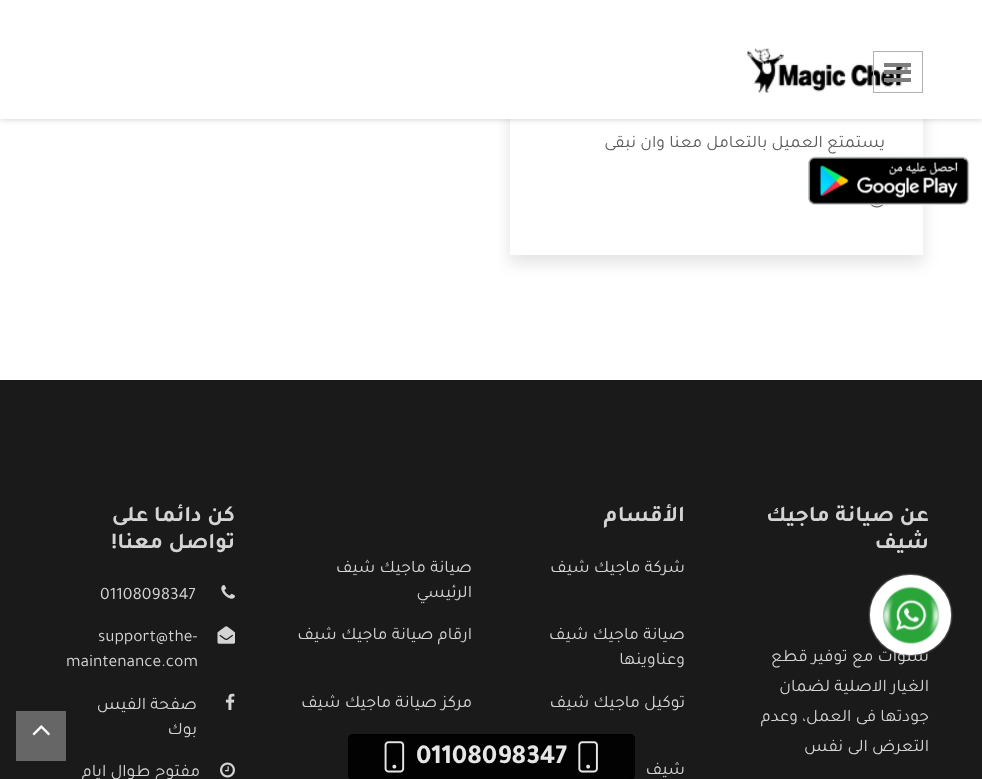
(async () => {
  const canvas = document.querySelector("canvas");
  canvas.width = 982;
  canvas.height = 779;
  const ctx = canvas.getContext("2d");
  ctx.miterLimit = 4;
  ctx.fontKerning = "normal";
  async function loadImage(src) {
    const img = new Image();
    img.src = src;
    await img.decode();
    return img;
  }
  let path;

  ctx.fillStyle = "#ffffff";
  ctx.fillRect(0, 0, 982, 779);
  ctx.fillStyle = "rgba(0, 0, 0, 0.2)";
  ctx.filter = "blur(3px)";
  ctx.beginPath();
  ctx.rect(0, 0, 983, 119);
  ctx.fill();
  ctx.filter = "none";
  ctx.save();
  path = new Path2D("M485 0H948V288H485ZM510-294H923V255H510Z");
  ctx.clip(path, "evenodd");
  ctx.fillStyle = "rgba(0, 0, 0, 0.1)";
  ctx.filter = "blur(7.5px)";
  ctx.beginPath();
  ctx.rect(509, -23, 415, 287);
  ctx.fill();
  ctx.filter = "none";
  ctx.restore();
  ctx.fillStyle = "#ffffff";
  ctx.fillRect(0, 0, 982, 119);
  ctx.drawImage(await loadImage("img/1.png"), 747, 48, 161, 45);
  ctx.strokeStyle = "#b0b0b0";
  ctx.strokeRect(873.5, 51.5, 49, 41);
  for (const [x, y, w, h, color] of [
    [884, 63, 27, 4, "#7d7d7d"],
    [884, 70, 27, 4, "#7d7d7d"],
    [884, 78, 27, 4, "#7d7d7d"],
  ]) {
    ctx.fillStyle = color;
    ctx.fillRect(x, y, w, h);
  }
  ctx.drawImage(await loadImage("img/2.png"), 869, 204, 15, 4);
  ctx.drawImage(await loadImage("img/3.png"), 807, 156, 163, 50);
  ctx.fillStyle = "#1a1a1a";
  ctx.fillRect(0, 380, 982, 399);
  ctx.drawImage(await loadImage("img/4.png"), 221, 585, 14, 14);
  ctx.drawImage(await loadImage("img/5.png"), 217, 626, 18, 18);
  ctx.drawImage(await loadImage("img/6.png"), 225, 693, 10, 17);
  ctx.drawImage(await loadImage("img/7.png"), 220, 762, 15, 16);
  ctx.fillStyle = "#dddddd";
  ctx.filter = "blur(1px)";
  ctx.beginPath();
  ctx.roundRect(870, 575, 81, 80, 40);
  ctx.fill();
  ctx.filter = "none";
  ctx.fillStyle = "rgba(0, 0, 0, 0.9)";
  ctx.beginPath();
  ctx.roundRect(348, 734, 287, 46, 5);
  ctx.fill();
  ctx.beginPath();
  ctx.roundRect(348.5, 734.5, 286, 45, 4.5);
  ctx.strokeStyle = "rgba(0, 0, 0, 0.9)";
  ctx.stroke();
  ctx.drawImage(await loadImage("img/9.png"), 578, 741, 20, 32);
  ctx.drawImage(await loadImage("img/10.png"), 384, 741, 21, 32);
  ctx.fillStyle = "#666666";
  ctx.fillRect(16, 711, 50, 50);
  ctx.drawImage(await loadImage("img/11.png"), 32, 725, 18, 11);
  ctx.direction = "rtl";
  ctx.font = "17.5px Tajawal";
  ctx.fillStyle = "#5b5b5b";
  ctx.fillText("يستمتع العميل بالتعامل معنا وان نبقى", 885, 147);
  ctx.font = "bold 22.5px Tajawal";
  ctx.fillStyle = "#d4d4d4";
  ctx.fillText("عن صيانة ماجيك", 929, 521);
  ctx.fillText("شيف", 929, 548);
  ctx.font = "17.5px Tajawal";
  for (const [text, x, y] of [
    ["سنوات مع توفير قطع", 929, 661],
    ["الغيار الاصلية لضمان", 929, 691],
    ["جودتها فى العمل، وعدم", 929, 721],
    ["التعرض الى نفس", 929, 751],
  ]) {
    ctx.fillText(text, x, y);
  }
  ctx.font = "bold 22.5px Tajawal";
  ctx.fillText("الأقسام", 685, 521);
  ctx.font = "17.5px Tajawal";
  for (const [text, x, y] of [
    ["شركة ماجيك شيف", 685, 572],
    ["صيانة ماجيك شيف", 472, 572],
    ["الرئيسي", 472, 597],
    ["صيانة ماجيك شيف", 685, 639],
    ["وعناوينها", 685, 664],
    ["ارقام صيانة ماجيك شيف", 472, 639],
    ["توكيل ماجيك شيف", 685, 707],
    ["مركز صيانة ماجيك شيف", 472, 707],
    ["شيف", 685, 774],
  ]) {
    ctx.fillText(text, x, y);
  }
  ctx.font = "bold 22.5px Tajawal";
  ctx.fillText("كن دائما على", 235, 521);
  ctx.fillText("تواصل معنا!", 235, 548);
  ctx.direction = "ltr";
  ctx.font = "17.5px Tajawal";
  for (const [text, x, y] of [
    ["01108098347", 100, 599],
    ["support@the-", 98, 641],
    ["maintenance.com", 66, 666],
  ]) {
    ctx.fillText(text, x, y);
  }
  ctx.direction = "rtl";
  for (const [text, x, y] of [
    ["صفحة الفيس", 197, 709],
    ["بوك", 197, 734],
    ["مفتوح طوال ايام", 200, 776],
  ]) {
    ctx.fillText(text, x, y);
  }
  ctx.fillStyle = "#ffffff";
  ctx.beginPath();
  ctx.roundRect(875, 580, 71, 70, 35);
  ctx.fill();
  ctx.strokeStyle = "#ffffff";
  ctx.lineWidth = 10;
  ctx.stroke();
  ctx.drawImage(await loadImage("img/8.png"), 882, 586, 58, 59);
  ctx.direction = "ltr";
  ctx.font = "bold 27.5px Tajawal";
  ctx.fillStyle = "#e6e6e6";
  ctx.fillText("01108098347", 416, 763);
})();
